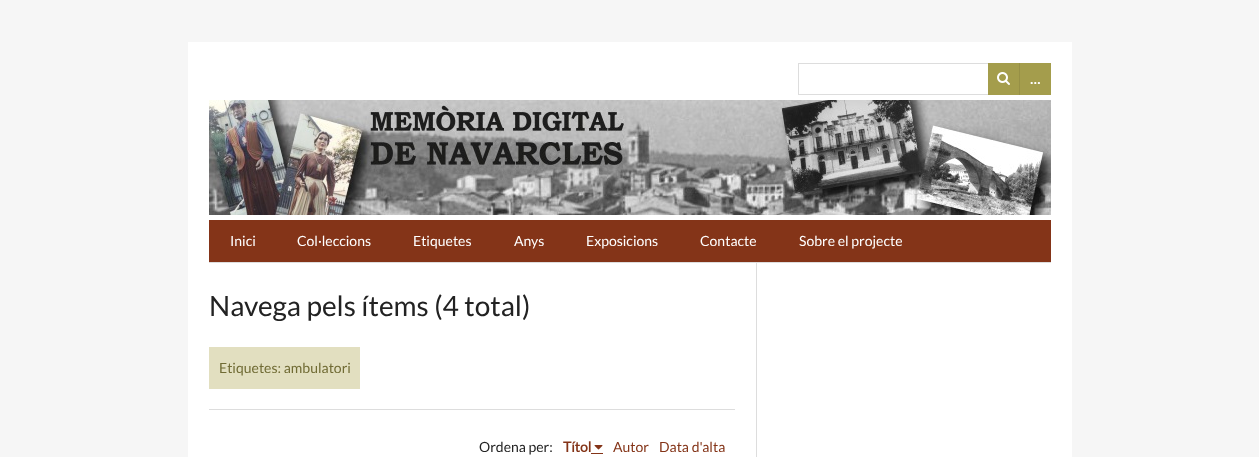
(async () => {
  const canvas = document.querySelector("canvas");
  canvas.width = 1259;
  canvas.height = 457;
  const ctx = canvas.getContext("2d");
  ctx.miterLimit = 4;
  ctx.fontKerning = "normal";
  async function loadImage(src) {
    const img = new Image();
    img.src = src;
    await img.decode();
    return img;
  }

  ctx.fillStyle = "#f6f6f6";
  ctx.fillRect(0, 0, 1259, 457);
  ctx.fillStyle = "#ffffff";
  ctx.fillRect(188, 42, 884, 415);
  ctx.strokeStyle = "#dddddd";
  ctx.strokeRect(798.5, 63.5, 252, 31);
  ctx.fillStyle = "#a49d4c";
  ctx.fillRect(988, 63, 31, 32);
  ctx.drawImage(await loadImage("img/1.png"), 997, 72, 13, 13);
  ctx.fillRect(1020, 63, 31, 32);
  ctx.fillStyle = "#979046";
  ctx.fillRect(1019, 63, 1, 32);
  ctx.drawImage(await loadImage("img/2.png"), 209, 100, 842, 115);
  for (const [x, y, w, h, color] of [
    [209, 220, 842, 42, "#843418"],
    [209, 262, 842, 1, "#dddddd"],
    [756, 263, 1, 194, "#dddddd"],
    [209, 409, 526, 1, "#dddddd"],
    [209, 347, 151, 42, "#e2dfc0"],
    [591, 453, 12, 1, "#843418"],
  ]) {
    ctx.fillStyle = color;
    ctx.fillRect(x, y, w, h);
  }
  ctx.drawImage(await loadImage("img/3.png"), 594, 445, 9, 5);
  ctx.font = "bold 14px Lato";
  ctx.fillStyle = "#ffffff";
  ctx.fillText("…", 1030, 84);
  ctx.font = "14px Lato";
  for (const [text, x, y] of [
    ["Inici", 230, 246],
    ["Col·leccions", 297, 246],
    ["Etiquetes", 413, 246],
    ["Anys", 514, 246],
    ["Exposicions", 586, 246],
    ["Contacte", 700, 246],
    ["Sobre el projecte", 799, 246],
  ]) {
    ctx.fillText(text, x, y);
  }
  ctx.font = "28px Lato";
  ctx.fillStyle = "#222222";
  ctx.fillText("Navega pels ítems (4 total)", 209, 316);
  ctx.font = "14px Lato";
  ctx.fillStyle = "#706b34";
  ctx.fillText("Etiquetes: ambulatori", 219, 373);
  ctx.fillStyle = "#222222";
  ctx.fillText("Ordena per:", 479, 452);
  ctx.font = "bold 14px Lato";
  ctx.fillStyle = "#843418";
  ctx.fillText("Títol", 563, 452);
  ctx.font = "14px Lato";
  ctx.fillText("Autor", 613, 452);
  ctx.fillText("Data d'alta", 659, 452);
})();
